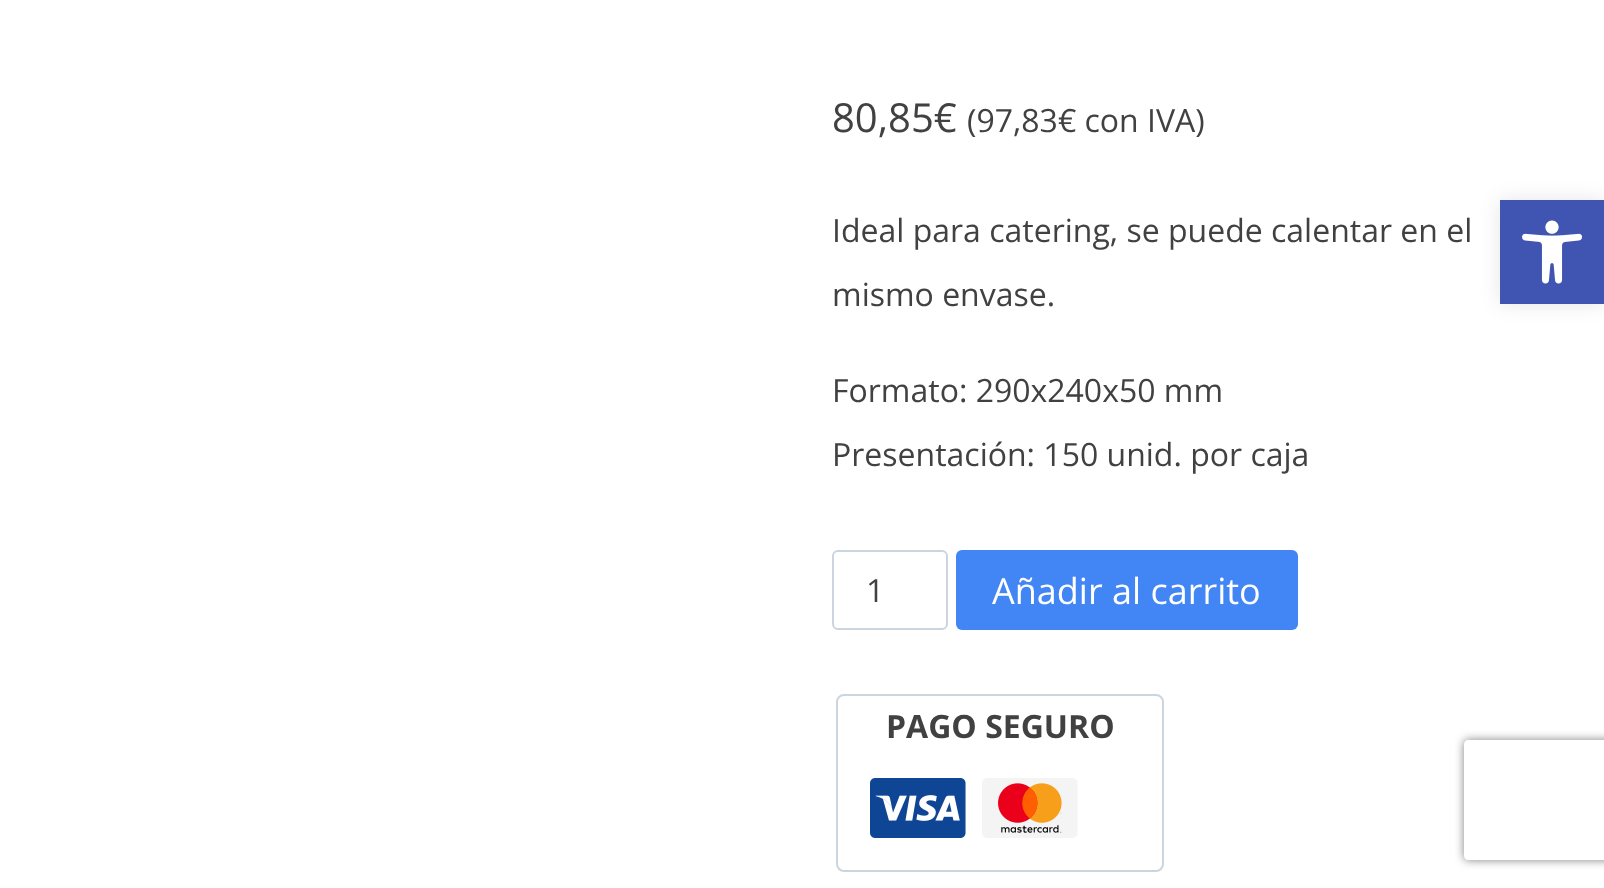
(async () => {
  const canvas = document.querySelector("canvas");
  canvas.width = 1604;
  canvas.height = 888;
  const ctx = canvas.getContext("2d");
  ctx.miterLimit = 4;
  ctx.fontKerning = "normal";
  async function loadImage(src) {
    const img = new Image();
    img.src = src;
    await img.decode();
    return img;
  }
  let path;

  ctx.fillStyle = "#ffffff";
  ctx.fillRect(0, 0, 1604, 888);
  ctx.beginPath();
  ctx.roundRect(833, 551, 114, 78, 5);
  ctx.strokeStyle = "#cbd5e0";
  ctx.lineWidth = 2;
  ctx.stroke();
  ctx.fillStyle = "#4285f4";
  ctx.beginPath();
  ctx.roundRect(956, 550, 342, 80, 6);
  ctx.fill();
  ctx.beginPath();
  ctx.roundRect(837, 695, 326, 176, 7);
  ctx.stroke();
  ctx.drawImage(await loadImage("img/1.png"), 870, 778, 96, 60);
  ctx.drawImage(await loadImage("img/2.png"), 982, 778, 96, 60);
  ctx.fillStyle = "rgba(0, 0, 0, 0.1)";
  ctx.filter = "blur(10px)";
  ctx.beginPath();
  ctx.rect(1500, 200, 104, 104);
  ctx.fill();
  ctx.filter = "none";
  ctx.fillStyle = "#4054b2";
  ctx.fillRect(1500, 200, 104, 104);
  ctx.drawImage(await loadImage("img/3.png"), 1522, 220, 61, 64);
  ctx.save();
  path = new Path2D("M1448 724H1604V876H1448ZM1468 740H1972C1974 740 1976 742 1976 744V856C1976 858 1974 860 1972 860H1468C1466 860 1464 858 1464 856V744C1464 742 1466 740 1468 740Z");
  ctx.clip(path, "evenodd");
  ctx.fillStyle = "#808080";
  ctx.filter = "blur(5px)";
  ctx.beginPath();
  ctx.roundRect(1464, 740, 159, 120, 4);
  ctx.fill();
  ctx.filter = "none";
  ctx.restore();
  ctx.font = "40px Open Sans";
  ctx.fillStyle = "#414141";
  ctx.fillText("80,85€", 832, 132);
  ctx.font = "32px Open Sans";
  for (const [text, x, y] of [
    ["(97,83€ con IVA)", 967, 132],
    ["Ideal para catering, se puede calentar en el", 832, 242],
    ["mismo envase.", 832, 306],
    ["Formato: 290x240x50 mm", 832, 402],
    ["Presentación: 150 unid. por caja", 832, 466],
    ["1", 866, 602],
  ]) {
    ctx.fillText(text, x, y);
  }
  ctx.font = "36px Open Sans";
  ctx.fillStyle = "#ffffff";
  ctx.fillText("Añadir al carrito", 992, 604);
  ctx.font = "bold 32px Open Sans";
  ctx.fillStyle = "#414141";
  ctx.fillText("PAGO SEGURO", 886, 738);
})();
